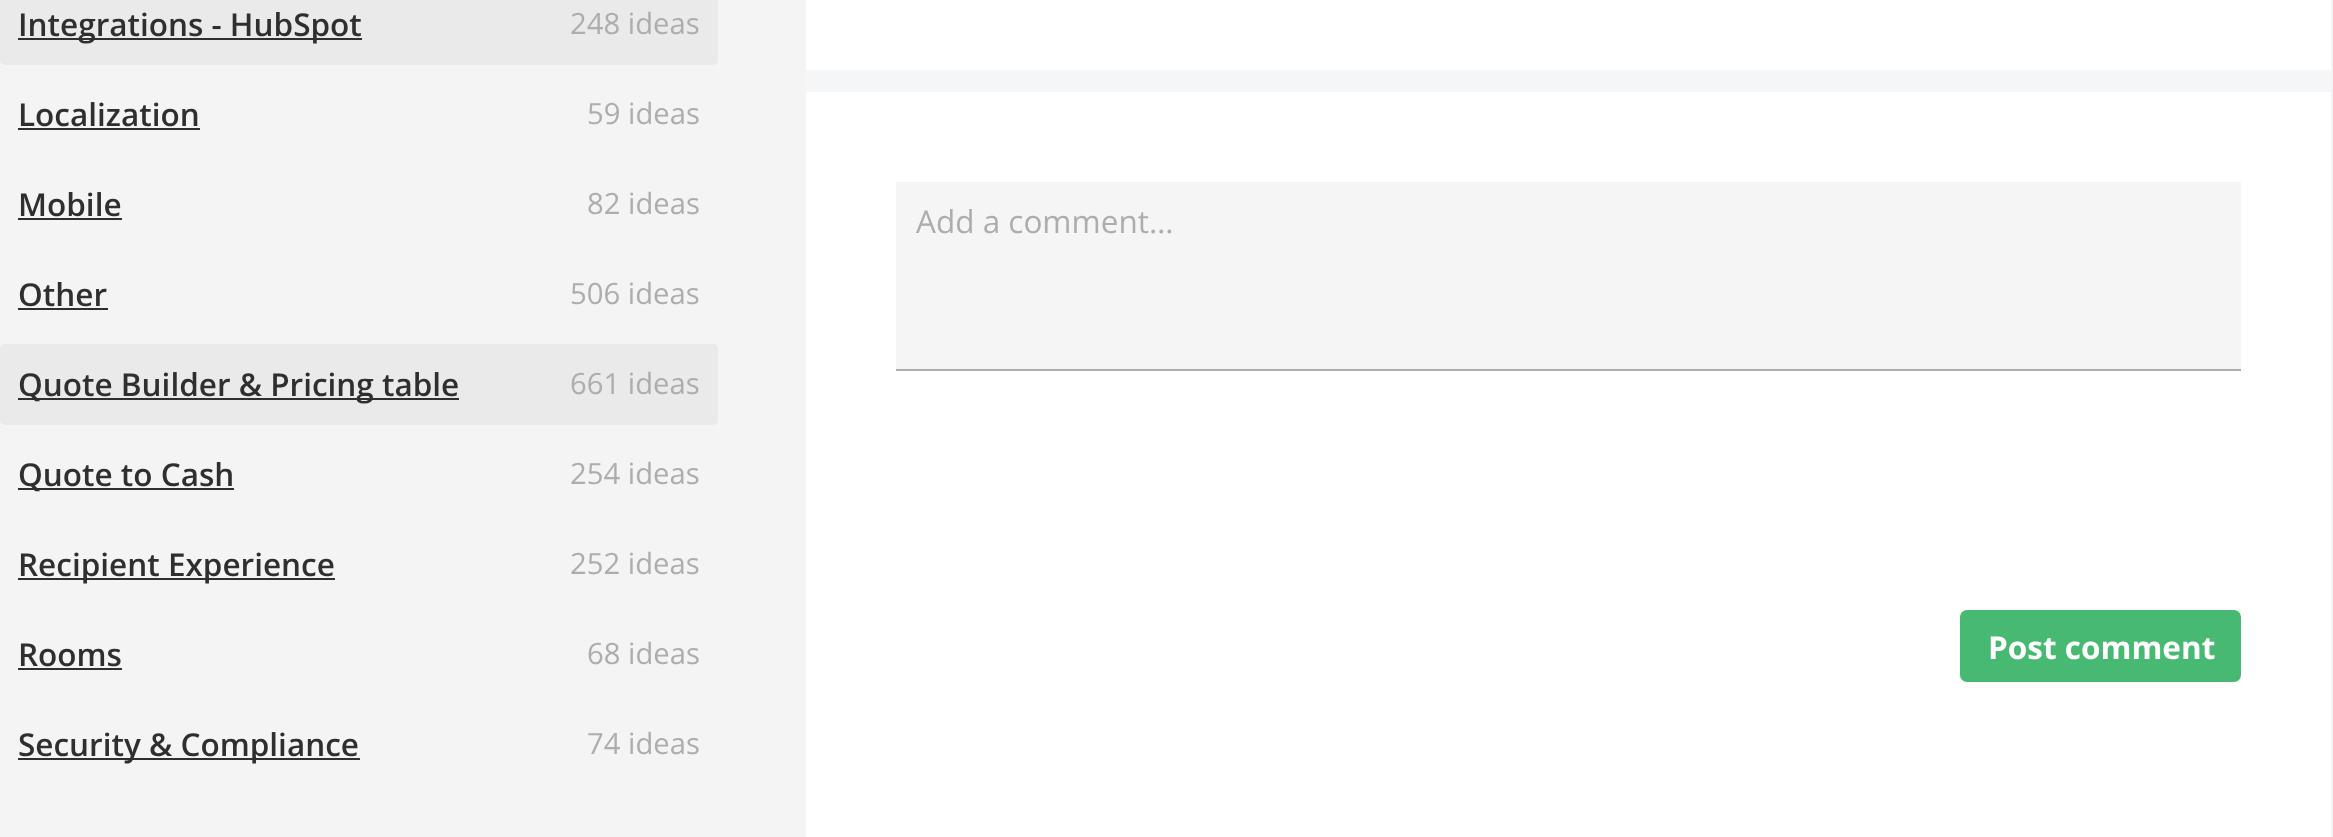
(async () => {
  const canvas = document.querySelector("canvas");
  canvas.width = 2333;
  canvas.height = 837;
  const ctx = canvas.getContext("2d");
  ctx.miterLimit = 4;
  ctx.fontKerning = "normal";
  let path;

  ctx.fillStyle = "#f4f4f4";
  ctx.fillRect(0, 0, 2333, 837);
  ctx.fillStyle = "#eaeaea";
  ctx.beginPath();
  ctx.roundRect(0, -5, 718, 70, 5);
  ctx.fill();
  for (const [x, y, w, h, color] of [
    [18, 38, 344, 2, "#2f2f2f"],
    [18, 128, 182, 2, "#2f2f2f"],
    [18, 218, 104, 2, "#2f2f2f"],
    [18, 308, 90, 2, "#2f2f2f"],
  ]) {
    ctx.fillStyle = color;
    ctx.fillRect(x, y, w, h);
  }
  ctx.fillStyle = "#eaeaea";
  ctx.beginPath();
  ctx.roundRect(0, 344, 718, 81, 5);
  ctx.fill();
  for (const [x, y, w, h, color] of [
    [18, 398, 441, 2, "#2f2f2f"],
    [18, 488, 216, 2, "#2f2f2f"],
    [18, 578, 317, 2, "#2f2f2f"],
    [18, 668, 104, 2, "#2f2f2f"],
    [18, 758, 342, 2, "#2f2f2f"],
  ]) {
    ctx.fillStyle = color;
    ctx.fillRect(x, y, w, h);
  }
  ctx.fillStyle = "#ffffff";
  path = new Path2D("M812-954H2331V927C2331 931 2328 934 2324 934H812C809 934 806 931 806 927V-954Z");
  ctx.fill(path);
  for (const [x, y, w, h, color] of [
    [806, 70, 1525, 22, "#f5f6f7"],
    [896, 182, 1345, 187, "#f5f5f5"],
    [896, 369, 1345, 2, "#adadad"],
  ]) {
    ctx.fillStyle = color;
    ctx.fillRect(x, y, w, h);
  }
  ctx.fillStyle = "#47b972";
  ctx.beginPath();
  ctx.roundRect(1960, 610, 281, 72, 7);
  ctx.fill();
  ctx.font = "600 31.5px Open Sans";
  ctx.fillStyle = "#2f2f2f";
  ctx.fillText("Integrations - HubSpot", 18, 36);
  ctx.font = "29.25px Open Sans";
  ctx.fillStyle = "#adadad";
  ctx.fillText("248 ideas", 570, 34);
  ctx.font = "600 31.5px Open Sans";
  ctx.fillStyle = "#2f2f2f";
  ctx.fillText("Localization", 18, 126);
  ctx.font = "29.25px Open Sans";
  ctx.fillStyle = "#adadad";
  ctx.fillText("59 ideas", 587, 124);
  ctx.font = "600 31.5px Open Sans";
  ctx.fillStyle = "#2f2f2f";
  ctx.fillText("Mobile", 18, 216);
  ctx.font = "29.25px Open Sans";
  ctx.fillStyle = "#adadad";
  ctx.fillText("82 ideas", 587, 214);
  ctx.font = "600 31.5px Open Sans";
  ctx.fillStyle = "#2f2f2f";
  ctx.fillText("Other", 18, 306);
  ctx.font = "29.25px Open Sans";
  ctx.fillStyle = "#adadad";
  ctx.fillText("506 ideas", 570, 304);
  ctx.font = "600 31.5px Open Sans";
  ctx.fillStyle = "#2f2f2f";
  ctx.fillText("Quote Builder & Pricing table", 18, 396);
  ctx.font = "29.25px Open Sans";
  ctx.fillStyle = "#adadad";
  ctx.fillText("661 ideas", 570, 394);
  ctx.font = "600 31.5px Open Sans";
  ctx.fillStyle = "#2f2f2f";
  ctx.fillText("Quote to Cash", 18, 486);
  ctx.font = "29.25px Open Sans";
  ctx.fillStyle = "#adadad";
  ctx.fillText("254 ideas", 570, 484);
  ctx.font = "600 31.5px Open Sans";
  ctx.fillStyle = "#2f2f2f";
  ctx.fillText("Recipient Experience", 18, 576);
  ctx.font = "29.25px Open Sans";
  ctx.fillStyle = "#adadad";
  ctx.fillText("252 ideas", 570, 574);
  ctx.font = "600 31.5px Open Sans";
  ctx.fillStyle = "#2f2f2f";
  ctx.fillText("Rooms", 18, 666);
  ctx.font = "29.25px Open Sans";
  ctx.fillStyle = "#adadad";
  ctx.fillText("68 ideas", 587, 664);
  ctx.font = "600 31.5px Open Sans";
  ctx.fillStyle = "#2f2f2f";
  ctx.fillText("Security & Compliance", 18, 756);
  ctx.font = "29.25px Open Sans";
  ctx.fillStyle = "#adadad";
  ctx.fillText("74 ideas", 587, 754);
  ctx.font = "31.5px Open Sans";
  ctx.fillText("Add a comment…", 916, 233);
  ctx.font = "bold 31.5px Open Sans";
  ctx.fillStyle = "#ffffff";
  ctx.fillText("Post comment", 1988, 659);
})();
